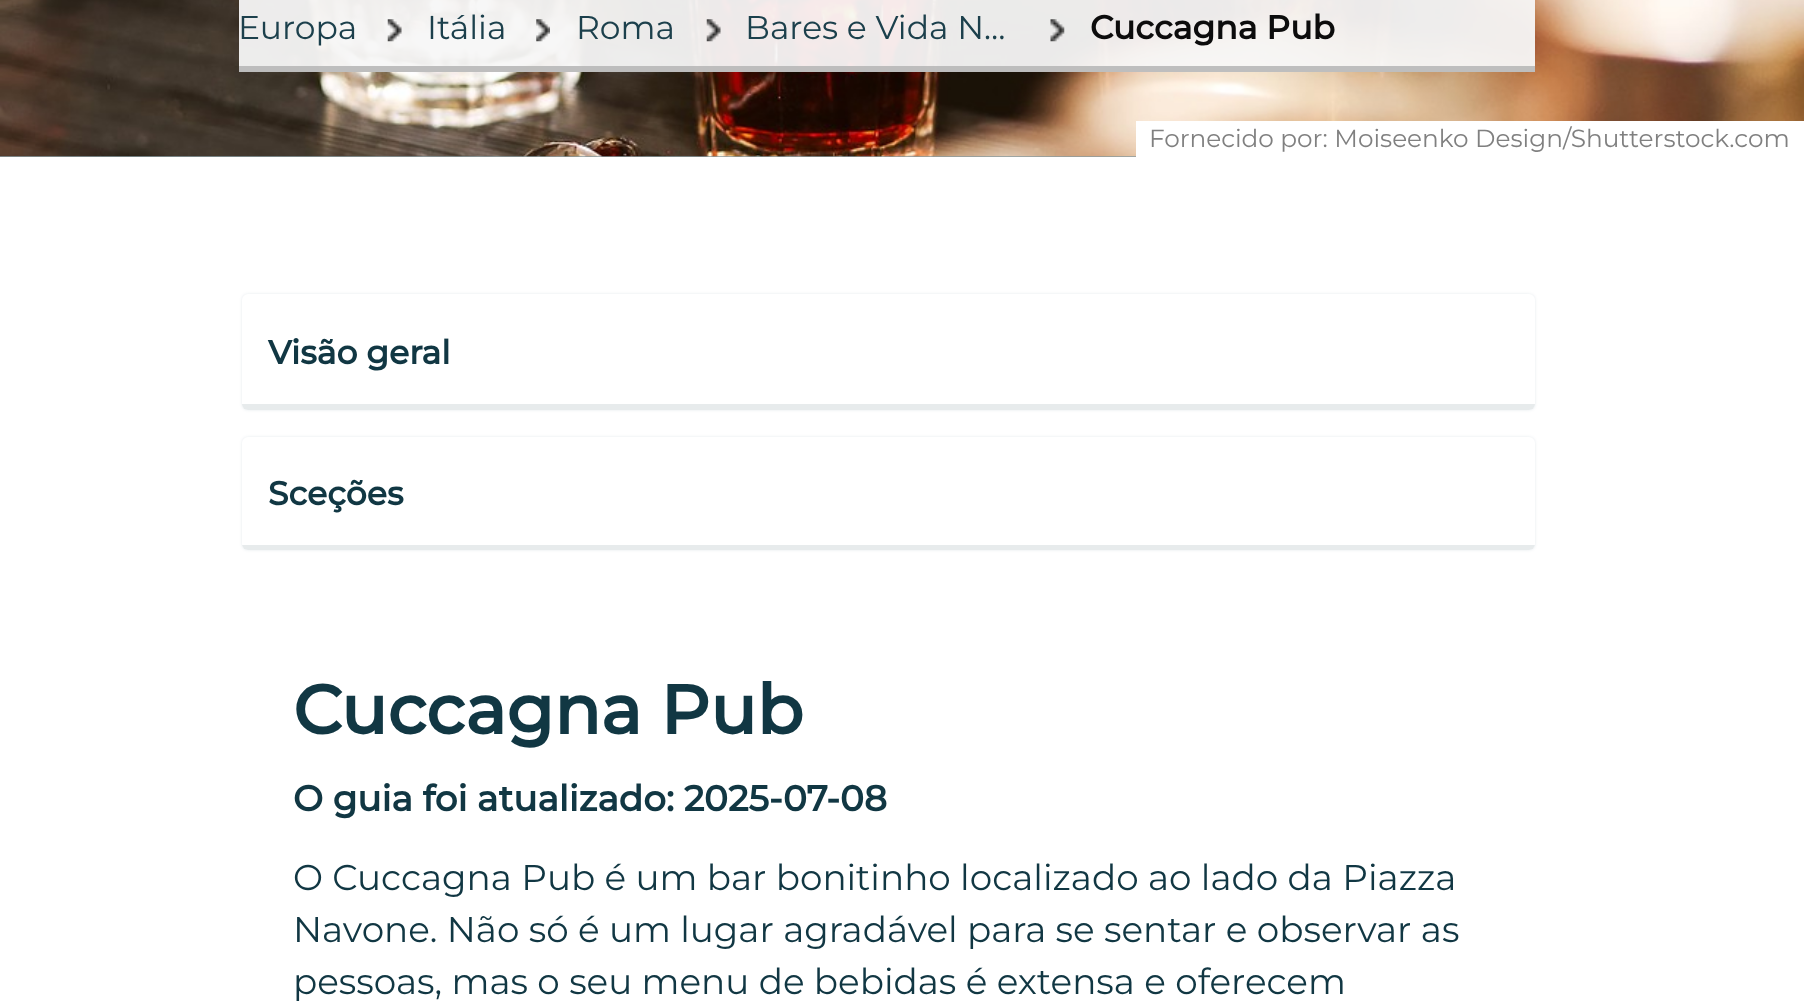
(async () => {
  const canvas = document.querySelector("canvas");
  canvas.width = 1804;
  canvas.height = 1003;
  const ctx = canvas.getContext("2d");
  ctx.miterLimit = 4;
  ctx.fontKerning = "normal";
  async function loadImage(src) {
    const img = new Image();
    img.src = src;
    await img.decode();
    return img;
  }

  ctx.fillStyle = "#ffffff";
  ctx.fillRect(0, 0, 1804, 1003);
  ctx.fillStyle = "#889ba1";
  ctx.fillRect(0, 156, 1136, 1);
  ctx.drawImage(await loadImage("img/5.png"), 0, 0, 1804, 157);
  ctx.fillStyle = "rgba(247, 247, 247, 0.95)";
  ctx.fillRect(239, 0, 1296, 72);
  ctx.fillStyle = "rgba(187, 187, 187, 0.95)";
  ctx.fillRect(239, 66, 1296, 6);
  ctx.drawImage(await loadImage("img/1.png"), 387, 19, 15, 23);
  ctx.drawImage(await loadImage("img/2.png"), 536, 19, 14, 23);
  ctx.drawImage(await loadImage("img/3.png"), 706, 19, 15, 23);
  ctx.drawImage(await loadImage("img/4.png"), 1050, 19, 15, 23);
  ctx.fillStyle = "rgba(3, 46, 92, 0.1)";
  ctx.filter = "blur(1.5px)";
  ctx.beginPath();
  ctx.roundRect(242, 294, 1293, 116, 6);
  ctx.fill();
  ctx.filter = "none";
  ctx.fillStyle = "#ffffff";
  ctx.beginPath();
  ctx.roundRect(242, 294, 1293, 116, 6);
  ctx.fill();
  ctx.fillStyle = "#e7ebec";
  ctx.beginPath();
  ctx.roundRect(242, 404, 1293, 6, [0, 0, 6, 6]);
  ctx.fill();
  ctx.fillStyle = "rgba(3, 46, 92, 0.1)";
  ctx.filter = "blur(1.5px)";
  ctx.beginPath();
  ctx.roundRect(242, 437, 1293, 113, 6);
  ctx.fill();
  ctx.filter = "none";
  ctx.fillStyle = "#ffffff";
  ctx.beginPath();
  ctx.roundRect(242, 437, 1293, 113, 6);
  ctx.fill();
  ctx.save();
  ctx.beginPath();
  ctx.roundRect(242, 437, 1293, 113, 6);
  ctx.clip();
  ctx.fillStyle = "#e7ebec";
  ctx.fillRect(242, 545, 1293, 5);
  ctx.restore();
  ctx.fillRect(1136, 121, 668, 36);
  ctx.font = "33px Montserrat";
  ctx.fillStyle = "#1c404c";
  for (const [text, x, y] of [
    ["Europa", 238, 39],
    ["Itália", 427, 39],
    ["Roma", 576, 39],
    ["Bares e Vida N…", 745, 39],
  ]) {
    ctx.fillText(text, x, y);
  }
  ctx.font = "bold 33px Montserrat";
  ctx.fillStyle = "#0c0c0c";
  ctx.fillText("Cuccagna Pub", 1090, 39);
  ctx.fillStyle = "#113743";
  ctx.fillText("Visão geral", 268, 364);
  ctx.fillText("Sceções", 268, 505);
  ctx.font = "bold 68.75px Montserrat";
  ctx.fillText("Cuccagna Pub", 293, 734);
  ctx.font = "bold 35.75px Montserrat";
  ctx.fillText("O guia foi atualizado: 2025-07-08", 293, 811);
  ctx.font = "35.75px Montserrat";
  for (const [text, x, y] of [
    ["O Cuccagna Pub é um bar bonitinho localizado ao lado da Piazza", 293, 890],
    ["Navone. Não só é um lugar agradável para se sentar e observar as", 293, 942],
    ["pessoas, mas o seu menu de bebidas é extensa e oferecem", 293, 994],
  ]) {
    ctx.fillText(text, x, y);
  }
  ctx.font = "24.75px Montserrat";
  ctx.fillStyle = "#808080";
  ctx.fillText("Fornecido por: Moiseenko Design/Shutterstock.com", 1149, 147);
})();
